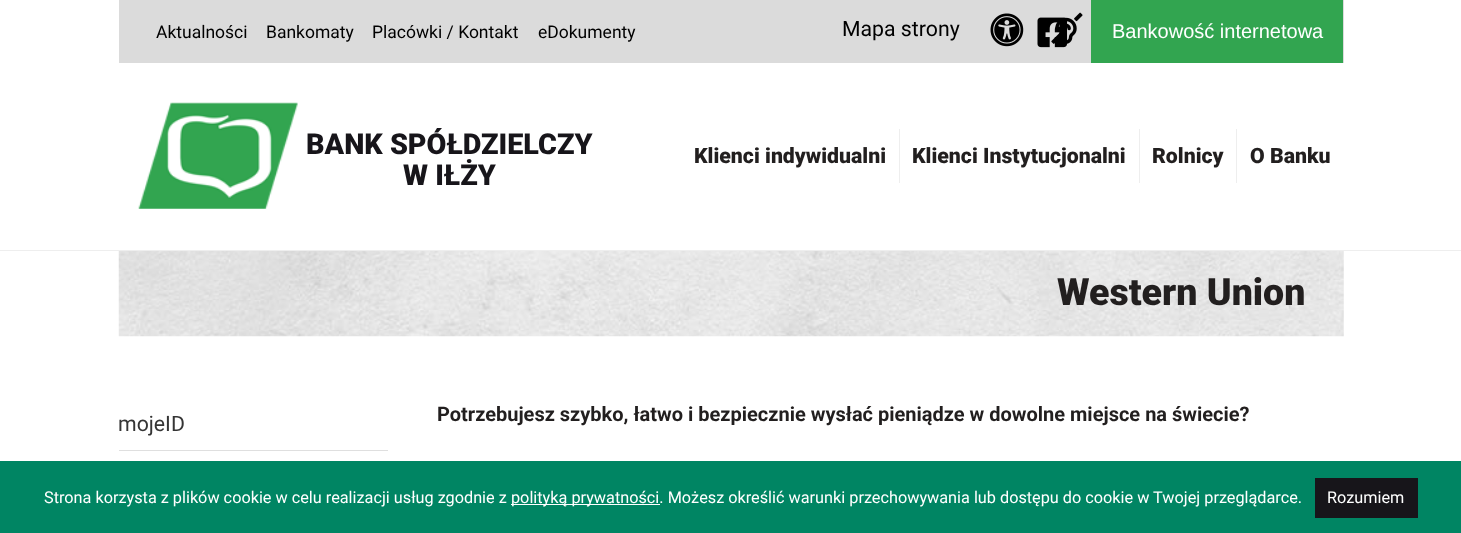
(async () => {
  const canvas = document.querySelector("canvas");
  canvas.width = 1461;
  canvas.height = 533;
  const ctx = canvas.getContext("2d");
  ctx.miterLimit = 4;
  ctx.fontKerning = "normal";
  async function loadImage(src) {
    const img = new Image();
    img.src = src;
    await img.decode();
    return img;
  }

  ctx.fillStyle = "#ffffff";
  ctx.fillRect(0, 0, 1461, 533);
  ctx.fillStyle = "#eeeeee";
  ctx.fillRect(0, 250, 1461, 1);
  ctx.fillStyle = "#dbdbdb";
  ctx.fillRect(119, 0, 1225, 63);
  ctx.drawImage(await loadImage("img/1.png"), 990, 13, 34, 34);
  ctx.drawImage(await loadImage("img/3.png"), 1037, 17, 31, 31);
  ctx.drawImage(await loadImage("img/2.png"), 1051, 12, 32, 32);
  ctx.fillStyle = "#32a550";
  ctx.fillRect(1091, 0, 252, 63);
  ctx.drawImage(await loadImage("img/4.png"), 138, 102, 160, 107);
  for (const [x, y, w, h, color] of [
    [899, 129, 1, 54, "#eeeeee"],
    [1139, 129, 1, 54, "#eeeeee"],
    [1236, 129, 1, 54, "#eeeeee"],
  ]) {
    ctx.fillStyle = color;
    ctx.fillRect(x, y, w, h);
  }
  ctx.drawImage(await loadImage("img/5.png"), 118, 251, 1226, 86);
  for (const [x, y, w, h, color] of [
    [119, 450, 269, 1, "#dfdfdf"],
    [0, 461, 1461, 72, "#008563"],
    [511, 504, 149, 1, "#ffffff"],
    [1315, 478, 103, 40, "#17151a"],
  ]) {
    ctx.fillStyle = color;
    ctx.fillRect(x, y, w, h);
  }
  ctx.font = "17.5px Roboto";
  ctx.fillStyle = "#000000";
  for (const [text, x, y] of [
    ["Aktualności", 156, 38],
    ["Bankomaty", 266, 38],
    ["Placówki / Kontakt", 372, 38],
    ["eDokumenty", 538, 38],
  ]) {
    ctx.fillText(text, x, y);
  }
  ctx.font = "21.25px Roboto";
  ctx.fillText("Mapa strony", 842, 36);
  ctx.font = "20px Liberation Sans";
  ctx.fillStyle = "#ffffff";
  ctx.fillText("Bankowość internetowa", 1112, 38);
  ctx.font = "900 28.75px Roboto";
  ctx.fillStyle = "#17151a";
  ctx.fillText("BANK SPÓŁDZIELCZY", 306, 154);
  ctx.fillText("W IŁŻY", 403, 185);
  ctx.font = "900 21.25px Roboto";
  ctx.fillStyle = "#221f1f";
  for (const [text, x, y] of [
    ["Klienci indywidualni", 694, 163],
    ["Klienci Instytucjonalni", 912, 163],
    ["Rolnicy", 1152, 163],
    ["O Banku", 1250, 163],
  ]) {
    ctx.fillText(text, x, y);
  }
  ctx.font = "900 37.5px Roboto";
  ctx.fillText("Western Union", 1057, 305);
  ctx.font = "21.25px Roboto";
  ctx.fillStyle = "#353535";
  ctx.fillText("mojeID", 118, 431);
  ctx.font = "bold 20px Roboto";
  ctx.fillStyle = "#221f1f";
  ctx.fillText("Potrzebujesz szybko, łatwo i bezpiecznie wysłać pieniądze w dowolne miejsce na świecie?", 437, 421);
  ctx.font = "16.25px Roboto";
  ctx.fillStyle = "#ffffff";
  for (const [text, x, y] of [
    ["Strona korzysta z plików cookie w celu realizacji usług zgodnie z", 44, 503],
    ["polityką prywatności. Możesz określić warunki przechowywania lub dostępu do cookie w Twojej przeglądarce.", 511, 503],
    ["Rozumiem", 1327, 503],
  ]) {
    ctx.fillText(text, x, y);
  }
})();
